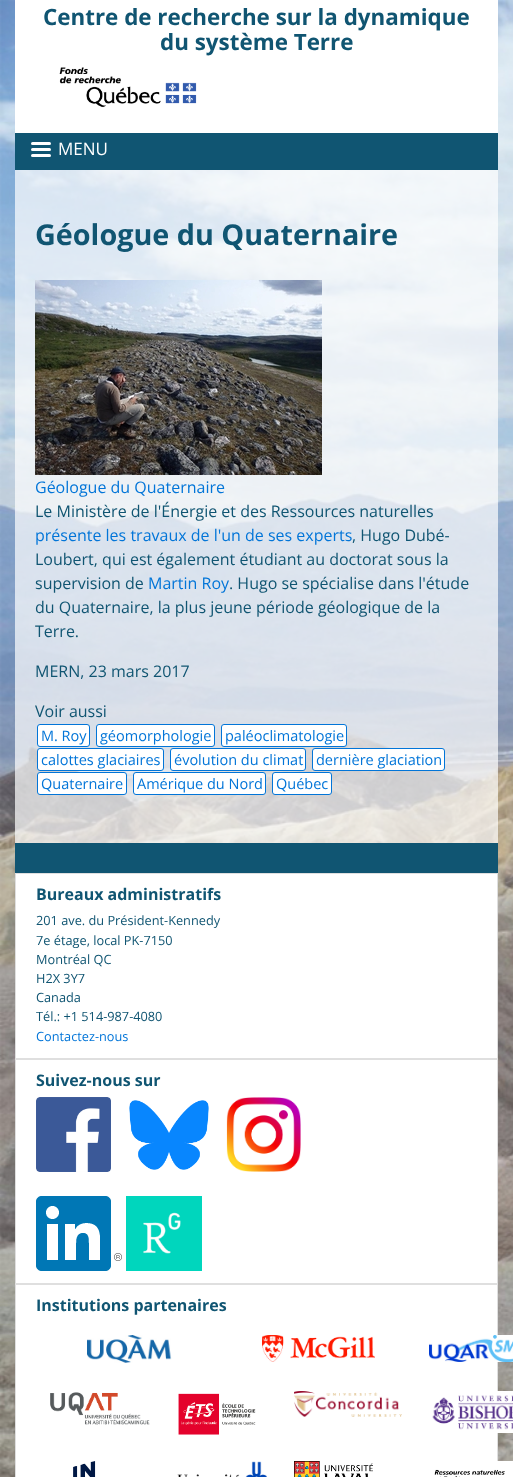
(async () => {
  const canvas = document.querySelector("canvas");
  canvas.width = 513;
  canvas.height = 1477;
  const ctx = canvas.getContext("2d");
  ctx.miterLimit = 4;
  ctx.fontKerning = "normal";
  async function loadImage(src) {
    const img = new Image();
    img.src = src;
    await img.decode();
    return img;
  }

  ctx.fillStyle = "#ffffff";
  ctx.fillRect(0, 0, 513, 1477);
  ctx.drawImage(await loadImage("img/1.png"), 0, 0, 513, 1477);
  ctx.fillRect(15, 0, 483, 133);
  ctx.drawImage(await loadImage("img/2.png"), 59, 67, 138, 41);
  ctx.fillStyle = "#105572";
  ctx.fillRect(15, 133, 483, 37);
  ctx.fillStyle = "#ffffff";
  ctx.beginPath();
  ctx.roundRect(31, 142, 20, 3, 1.5);
  ctx.fill();
  ctx.beginPath();
  ctx.roundRect(31, 148, 20, 3, 1.5);
  ctx.fill();
  ctx.beginPath();
  ctx.roundRect(31, 154, 20, 3, 1.5);
  ctx.fill();
  ctx.drawImage(await loadImage("img/3.png"), 35, 280, 287, 195);
  ctx.beginPath();
  ctx.roundRect(37.5, 724.5, 52, 22, 2.5);
  ctx.fill();
  ctx.strokeStyle = "#0275d8";
  ctx.stroke();
  ctx.beginPath();
  ctx.roundRect(96.5, 724.5, 118, 22, 2.5);
  ctx.fill();
  ctx.stroke();
  ctx.beginPath();
  ctx.roundRect(221.5, 724.5, 125, 22, 2.5);
  ctx.fill();
  ctx.stroke();
  ctx.beginPath();
  ctx.roundRect(37.5, 748.5, 126, 22, 2.5);
  ctx.fill();
  ctx.stroke();
  ctx.beginPath();
  ctx.roundRect(170.5, 748.5, 135, 22, 2.5);
  ctx.fill();
  ctx.stroke();
  ctx.beginPath();
  ctx.roundRect(312.5, 748.5, 132, 22, 2.5);
  ctx.fill();
  ctx.stroke();
  ctx.beginPath();
  ctx.roundRect(37.5, 772.5, 89, 22, 2.5);
  ctx.fill();
  ctx.stroke();
  ctx.beginPath();
  ctx.roundRect(133.5, 772.5, 132, 22, 2.5);
  ctx.fill();
  ctx.stroke();
  ctx.beginPath();
  ctx.roundRect(272.5, 772.5, 59, 22, 2.5);
  ctx.fill();
  ctx.stroke();
  ctx.fillStyle = "#105572";
  ctx.fillRect(15, 843, 483, 30);
  ctx.fillStyle = "#ffffff";
  ctx.beginPath();
  ctx.rect(15.5, 873.5, 482, 185);
  ctx.fill();
  ctx.strokeStyle = "#dfdfdf";
  ctx.stroke();
  ctx.beginPath();
  ctx.rect(15.5, 1059.5, 482, 224);
  ctx.fill();
  ctx.stroke();
  ctx.drawImage(await loadImage("img/4.png"), 36, 1097, 75, 75);
  ctx.drawImage(await loadImage("img/5.png"), 129, 1100, 80, 70);
  ctx.drawImage(await loadImage("img/6.png"), 226, 1097, 75, 75);
  ctx.drawImage(await loadImage("img/7.png"), 36, 1196, 86, 75);
  ctx.drawImage(await loadImage("img/8.png"), 126, 1196, 76, 75);
  ctx.beginPath();
  ctx.rect(15.5, 1284.5, 482, 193);
  ctx.fill();
  ctx.stroke();
  ctx.drawImage(await loadImage("img/9.png"), 87, 1335, 85, 28);
  ctx.drawImage(await loadImage("img/10.png"), 262, 1335, 113, 27);
  ctx.drawImage(await loadImage("img/11.png"), 429, 1335, 84, 27);
  ctx.drawImage(await loadImage("img/12.png"), 50, 1392, 100, 33);
  ctx.drawImage(await loadImage("img/13.png"), 178, 1393, 78, 42);
  ctx.drawImage(await loadImage("img/14.png"), 294, 1391, 108, 26);
  ctx.drawImage(await loadImage("img/15.png"), 432, 1391, 81, 42);
  ctx.drawImage(await loadImage("img/16.png"), 73, 1461, 23, 16);
  ctx.drawImage(await loadImage("img/17.png"), 177, 1461, 90, 16);
  ctx.drawImage(await loadImage("img/18.png"), 294, 1461, 79, 16);
  ctx.drawImage(await loadImage("img/19.png"), 434, 1461, 79, 16);
  ctx.font = "bold 22.4px Open Sans";
  ctx.fillStyle = "#105572";
  ctx.fillText("Centre de recherche sur la dynamique", 43, 25);
  ctx.fillText("du système Terre", 160, 50);
  ctx.font = "17px Open Sans";
  ctx.fillStyle = "#ffffff";
  ctx.fillText("MENU", 58, 155);
  ctx.font = "bold 28.75px Open Sans";
  ctx.fillStyle = "#105572";
  ctx.fillText("Géologue du Quaternaire", 35, 245);
  ctx.font = "16px Open Sans";
  ctx.fillStyle = "#0275d8";
  ctx.fillText("Géologue du Quaternaire", 35, 493);
  ctx.fillStyle = "#105572";
  ctx.fillText("Le Ministère de l'Énergie et des Ressources naturelles", 35, 517);
  ctx.fillStyle = "#0275d8";
  ctx.fillText("présente les travaux de l'un de ses experts", 35, 541);
  ctx.fillStyle = "#105572";
  for (const [text, x, y] of [
    [", Hugo Dubé-", 352, 541],
    ["Loubert, qui est également étudiant au doctorat sous la", 35, 565],
    ["supervision de", 35, 589],
  ]) {
    ctx.fillText(text, x, y);
  }
  ctx.fillStyle = "#0275d8";
  ctx.fillText("Martin Roy", 148, 589);
  ctx.fillStyle = "#105572";
  for (const [text, x, y] of [
    [". Hugo se spécialise dans l'étude", 229, 589],
    ["du Quaternaire, la plus jeune période géologique de la", 35, 613],
    ["Terre.", 35, 637],
    ["MERN, 23 mars 2017", 35, 677],
    ["Voir aussi", 35, 717],
  ]) {
    ctx.fillText(text, x, y);
  }
  ctx.font = "14.5px Open Sans";
  ctx.fillStyle = "#0275d8";
  for (const [text, x, y] of [
    ["M. Roy", 41, 741],
    ["géomorphologie", 100, 741],
    ["paléoclimatologie", 225, 741],
    ["calottes glaciaires", 41, 765],
    ["évolution du climat", 174, 765],
    ["dernière glaciation", 316, 765],
    ["Quaternaire", 41, 789],
    ["Amérique du Nord", 137, 789],
    ["Québec", 276, 789],
  ]) {
    ctx.fillText(text, x, y);
  }
  ctx.font = "bold 16px Open Sans";
  ctx.fillStyle = "#105572";
  ctx.fillText("Bureaux administratifs", 36, 900);
  ctx.font = "12.75px Open Sans";
  for (const [text, x, y] of [
    ["201 ave. du Président-Kennedy", 36, 925],
    ["7e étage, local PK-7150", 36, 945],
    ["Montréal QC", 36, 964],
    ["H2X 3Y7", 36, 983],
    ["Canada", 36, 1002],
    ["Tél.: +1 514-987-4080", 36, 1021],
  ]) {
    ctx.fillText(text, x, y);
  }
  ctx.fillStyle = "#0275d8";
  ctx.fillText("Contactez-nous", 36, 1041);
  ctx.font = "bold 16px Open Sans";
  ctx.fillStyle = "#105572";
  ctx.fillText("Suivez-nous sur", 36, 1086);
  ctx.fillText("Institutions partenaires", 36, 1311);
})();
